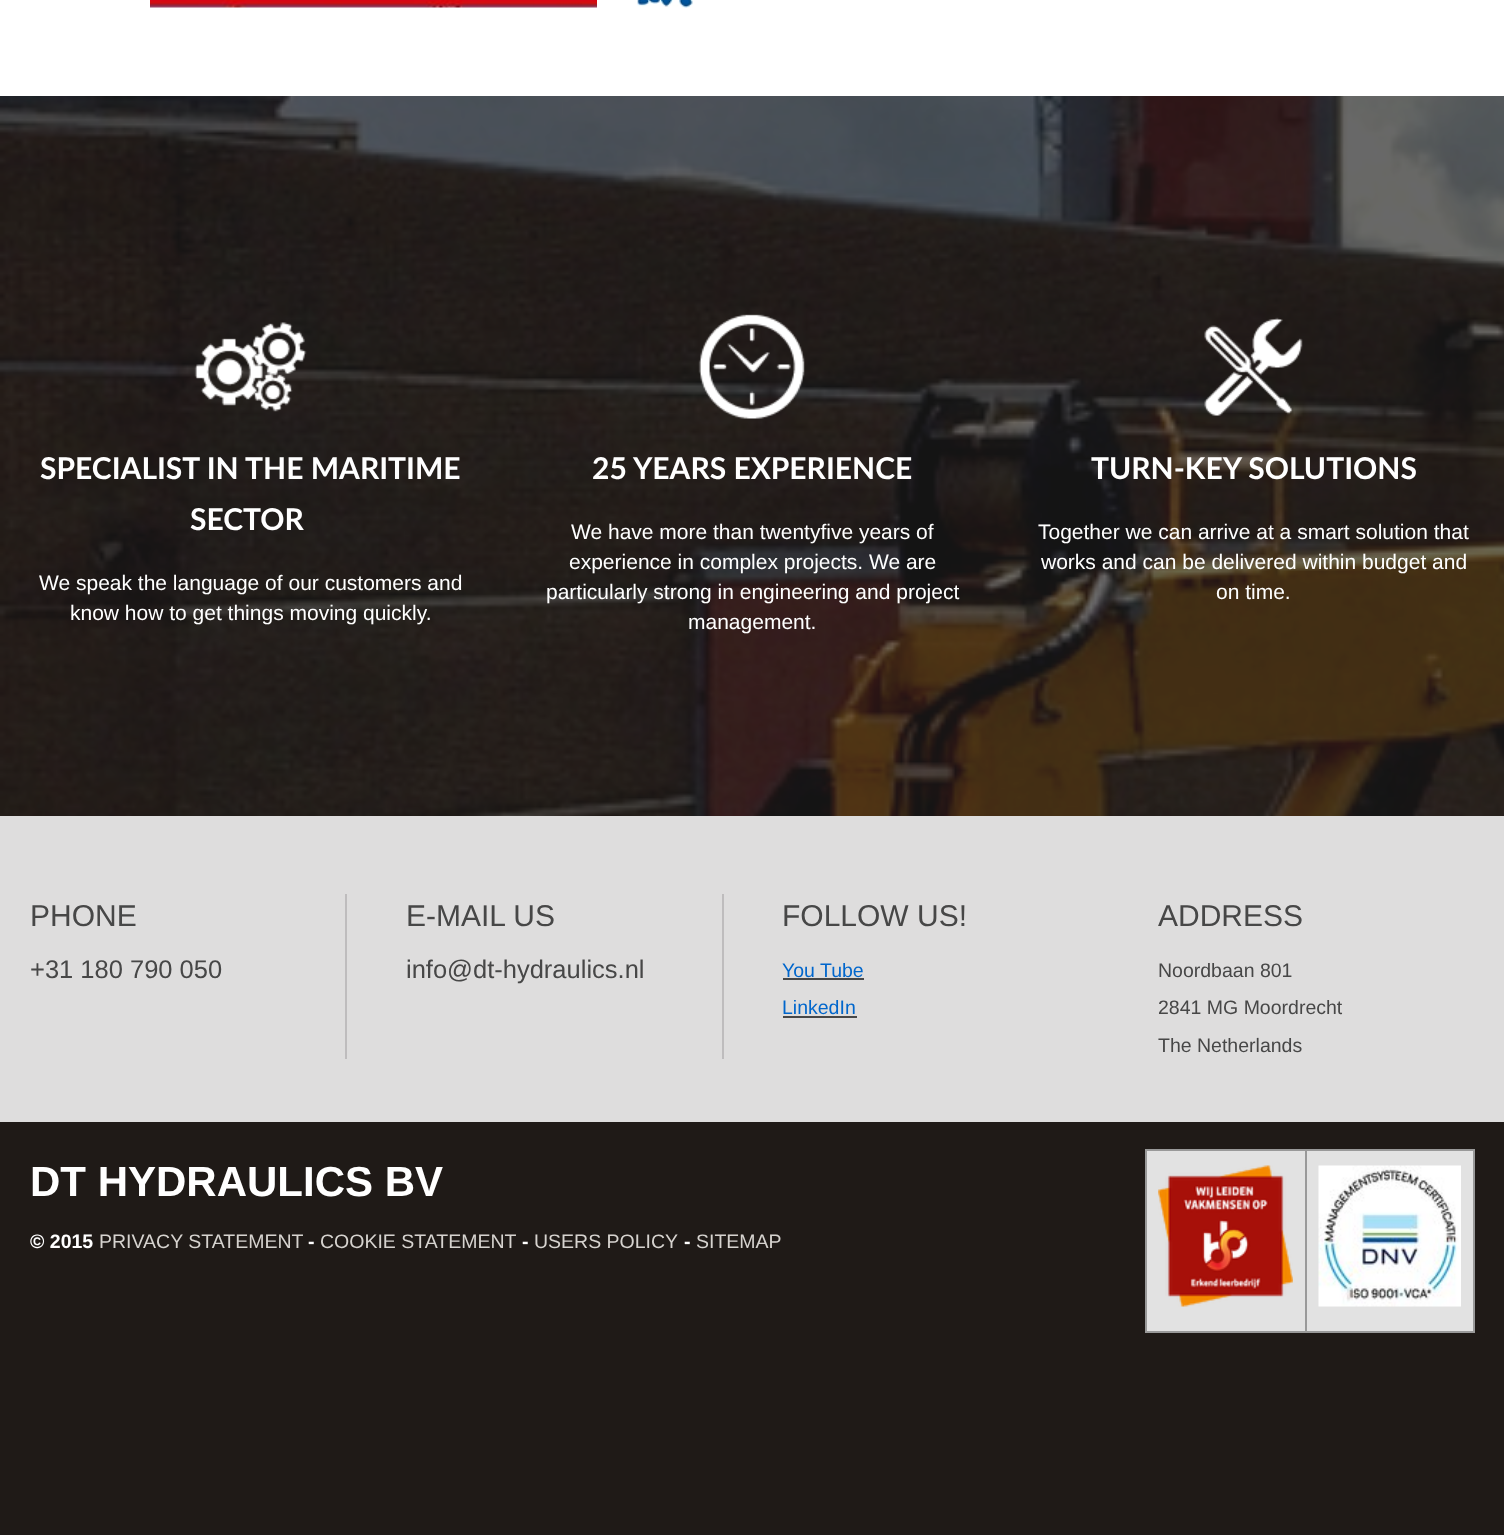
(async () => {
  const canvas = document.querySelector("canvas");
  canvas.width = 1504;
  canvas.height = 1535;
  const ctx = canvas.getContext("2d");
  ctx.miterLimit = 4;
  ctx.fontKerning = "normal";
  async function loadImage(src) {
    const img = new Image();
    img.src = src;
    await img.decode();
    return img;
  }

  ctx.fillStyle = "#ffffff";
  ctx.fillRect(0, 0, 1504, 1535);
  ctx.drawImage(await loadImage("img/1.png"), 150, 0, 447, 8);
  ctx.drawImage(await loadImage("img/2.png"), 637, 0, 56, 8);
  ctx.drawImage(await loadImage("img/3.png"), 0, 96, 1504, 720);
  ctx.drawImage(await loadImage("img/4.png"), 194, 322, 113, 90);
  ctx.drawImage(await loadImage("img/5.png"), 698, 314, 107, 105);
  ctx.drawImage(await loadImage("img/6.png"), 1204, 317, 99, 99);
  for (const [x, y, w, h, color] of [
    [0, 816, 1504, 306, "#dedddd"],
    [345, 894, 2, 165, "#bebcbd"],
    [722, 894, 2, 165, "#bebcbd"],
    [783, 978, 81, 2, "#474747"],
    [783, 1016, 74, 2, "#474747"],
    [0, 1122, 1504, 413, "#1f1a17"],
    [1147, 1151, 158, 180, "#e2e2e2"],
    [1305, 1149, 170, 2, "#999999"],
    [1473, 1149, 2, 183, "#999999"],
    [1305, 1331, 170, 2, "#999999"],
    [1305, 1149, 2, 183, "#999999"],
    [1145, 1149, 162, 2, "#999999"],
    [1145, 1331, 162, 2, "#999999"],
    [1145, 1149, 2, 183, "#999999"],
  ]) {
    ctx.fillStyle = color;
    ctx.fillRect(x, y, w, h);
  }
  ctx.drawImage(await loadImage("img/7.png"), 1158, 1165, 135, 142);
  ctx.fillStyle = "#e2e2e2";
  ctx.fillRect(1307, 1151, 166, 180);
  ctx.drawImage(await loadImage("img/8.png"), 1318, 1165, 143, 142);
  ctx.font = "bold 30px Lato";
  ctx.fillStyle = "#ffffff";
  ctx.fillText("SPECIALIST IN THE MARITIME", 40, 479);
  ctx.fillText("SECTOR", 190, 530);
  ctx.font = "21px Liberation Sans";
  ctx.fillText("We speak the language of our customers and", 39, 590);
  ctx.fillText("know how to get things moving quickly.", 70, 620);
  ctx.font = "bold 30px Lato";
  ctx.fillText("25 YEARS EXPERIENCE", 592, 479);
  ctx.font = "21px Liberation Sans";
  for (const [text, x, y] of [
    ["We have more than twentyfive years of", 571, 539],
    ["experience in complex projects. We are", 569, 569],
    ["particularly strong in engineering and project", 546, 599],
    ["management.", 688, 629],
  ]) {
    ctx.fillText(text, x, y);
  }
  ctx.font = "bold 30px Lato";
  ctx.fillText("TURN-KEY SOLUTIONS", 1091, 479);
  ctx.font = "21px Liberation Sans";
  for (const [text, x, y] of [
    ["Together we can arrive at a smart solution that", 1038, 539],
    ["works and can be delivered within budget and", 1041, 569],
    ["on time.", 1216, 599],
  ]) {
    ctx.fillText(text, x, y);
  }
  ctx.font = "30px Liberation Sans";
  ctx.fillStyle = "#474747";
  ctx.fillText("PHONE", 30, 926);
  ctx.font = "25.5px Liberation Sans";
  ctx.fillText("+31 180 790 050", 30, 978);
  ctx.font = "30px Liberation Sans";
  ctx.fillText("E-MAIL US", 406, 926);
  ctx.font = "25.5px Liberation Sans";
  ctx.fillText("info@dt-hydraulics.nl", 406, 978);
  ctx.font = "30px Liberation Sans";
  ctx.fillText("FOLLOW US!", 782, 926);
  ctx.font = "19.5px Liberation Sans";
  ctx.fillStyle = "#0066cc";
  ctx.fillText("You Tube", 782, 977);
  ctx.fillText("LinkedIn", 782, 1014);
  ctx.font = "30px Liberation Sans";
  ctx.fillStyle = "#474747";
  ctx.fillText("ADDRESS", 1158, 926);
  ctx.font = "19.5px Liberation Sans";
  for (const [text, x, y] of [
    ["Noordbaan 801", 1158, 977],
    ["2841 MG Moordrecht", 1158, 1014],
    ["The Netherlands", 1158, 1052],
  ]) {
    ctx.fillText(text, x, y);
  }
  ctx.font = "bold 42px Liberation Sans";
  ctx.fillStyle = "#ffffff";
  ctx.fillText("DT HYDRAULICS BV", 30, 1196);
  ctx.font = "bold 19.5px Liberation Sans";
  ctx.fillText("© 2015", 30, 1248);
  ctx.font = "19.5px Liberation Sans";
  ctx.fillStyle = "#d6d3cf";
  ctx.fillText("PRIVACY STATEMENT", 99, 1248);
  ctx.font = "bold 19.5px Liberation Sans";
  ctx.fillStyle = "#ffffff";
  ctx.fillText("-", 308, 1248);
  ctx.font = "19.5px Liberation Sans";
  ctx.fillStyle = "#d6d3cf";
  ctx.fillText("COOKIE STATEMENT", 320, 1248);
  ctx.font = "bold 19.5px Liberation Sans";
  ctx.fillStyle = "#ffffff";
  ctx.fillText("-", 522, 1248);
  ctx.font = "19.5px Liberation Sans";
  ctx.fillStyle = "#d6d3cf";
  ctx.fillText("USERS POLICY", 534, 1248);
  ctx.font = "bold 19.5px Liberation Sans";
  ctx.fillStyle = "#ffffff";
  ctx.fillText("-", 684, 1248);
  ctx.font = "19.5px Liberation Sans";
  ctx.fillStyle = "#d6d3cf";
  ctx.fillText("SITEMAP", 696, 1248);
})();
